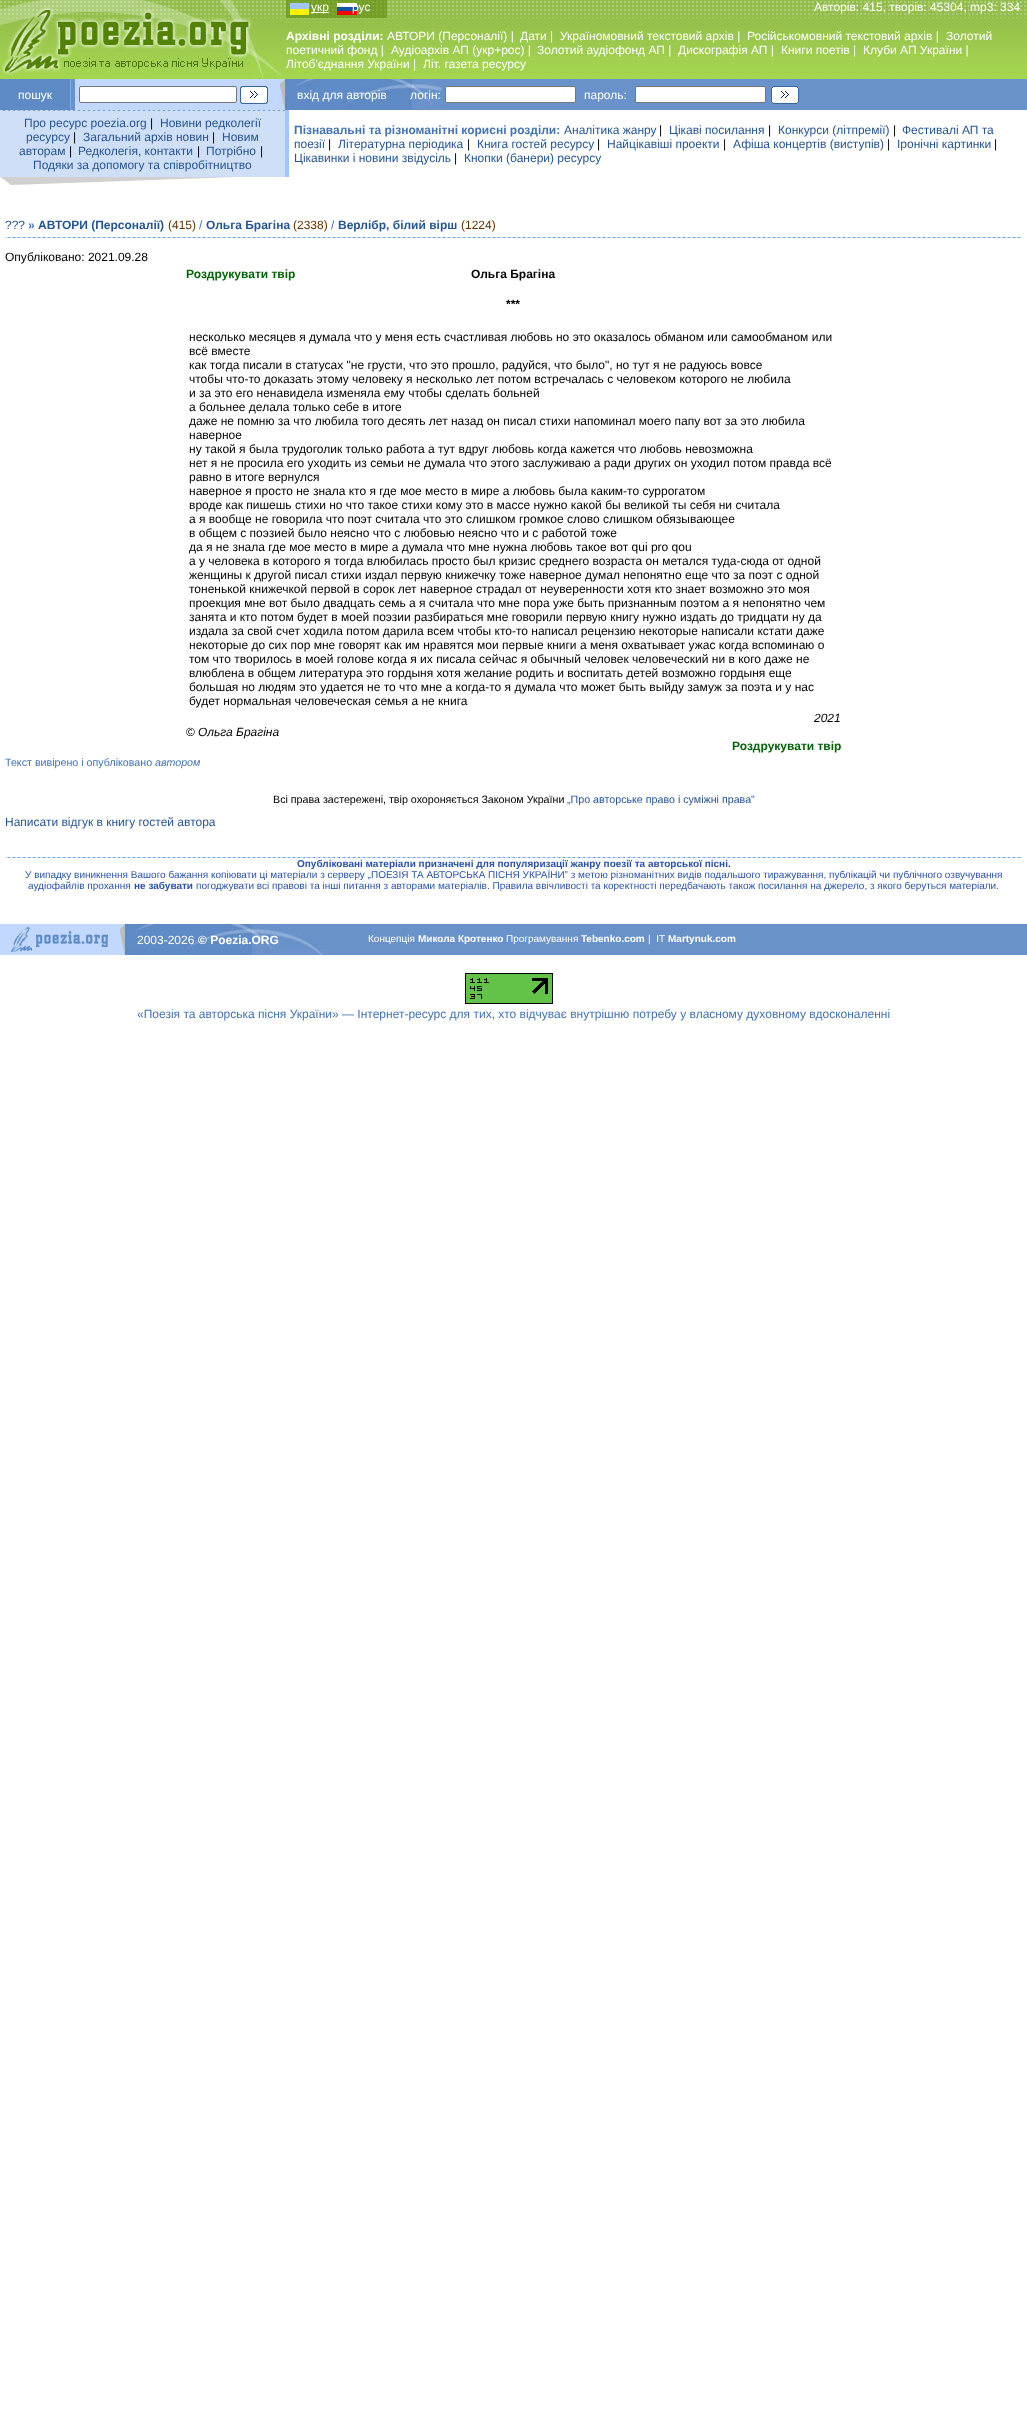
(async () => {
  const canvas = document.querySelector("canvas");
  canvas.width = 1027;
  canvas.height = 2435;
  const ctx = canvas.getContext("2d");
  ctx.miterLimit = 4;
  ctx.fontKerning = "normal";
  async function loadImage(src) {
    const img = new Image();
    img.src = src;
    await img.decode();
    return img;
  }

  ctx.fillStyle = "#ffffff";
  ctx.fillRect(0, 0, 1027, 2435);
  ctx.drawImage(await loadImage("img/1.png"), 286, 0, 741, 79);
  ctx.drawImage(await loadImage("img/2.png"), 0, 0, 286, 79);
  ctx.drawImage(await loadImage("img/3.png"), 286, 0, 101, 18);
  for (const [x, y, w, h, color] of [
    [311, 12, 18, 1, "#ffffff"],
    [70, 79, 1, 31, "#80a9e1"],
    [71, 79, 4, 31, "#6693ca"],
    [75, 79, 205, 31, "#c2d8ff"],
  ]) {
    ctx.fillStyle = color;
    ctx.fillRect(x, y, w, h);
  }
  ctx.fillStyle = "#ffffff";
  ctx.beginPath();
  ctx.roundRect(79.5, 86.5, 157, 16, 1.5);
  ctx.fill();
  ctx.strokeStyle = "#767676";
  ctx.stroke();
  ctx.fillStyle = "#6992ca";
  ctx.fillRect(441, 79, 586, 31);
  ctx.fillStyle = "#ffffff";
  ctx.beginPath();
  ctx.roundRect(445.5, 86.5, 130, 16, 1.5);
  ctx.fill();
  ctx.stroke();
  ctx.fillStyle = "#5e8bc6";
  ctx.fillRect(0, 79, 70, 31);
  ctx.drawImage(await loadImage("img/4.png"), 240, 86, 28, 18);
  ctx.drawImage(await loadImage("img/5.png"), 280, 79, 161, 31);
  ctx.fillStyle = "#ffffff";
  ctx.beginPath();
  ctx.roundRect(635.5, 86.5, 130, 16, 1.5);
  ctx.fill();
  ctx.stroke();
  ctx.drawImage(await loadImage("img/6.png"), 771, 86, 28, 18);
  ctx.drawImage(await loadImage("img/7.png"), 0, 110, 285, 1);
  ctx.fillStyle = "#a1c5ff";
  ctx.fillRect(285, 110, 4, 67);
  ctx.fillStyle = "#cfdff8";
  ctx.fillRect(0, 111, 285, 66);
  ctx.drawImage(await loadImage("img/8.png"), 0, 177, 232, 8);
  ctx.drawImage(await loadImage("img/9.png"), 5, 237, 1017, 1);
  ctx.drawImage(await loadImage("img/9.png"), 5, 857, 1017, 1);
  ctx.fillStyle = "#c2d8ff";
  ctx.fillRect(0, 924, 120, 31);
  ctx.drawImage(await loadImage("img/10.png"), 11, 927, 97, 25);
  ctx.fillStyle = "#6992ca";
  ctx.fillRect(328, 924, 699, 31);
  ctx.drawImage(await loadImage("img/11.png"), 120, 924, 208, 31);
  ctx.drawImage(await loadImage("img/12.png"), 465, 973, 88, 31);
  ctx.font = "12px Liberation Sans";
  ctx.fillStyle = "#ffffff";
  for (const [text, x, y] of [
    ["укр", 311, 11],
    ["рус", 352, 11],
    ["Авторiв: 415, творiв: 45304, mp3: 334", 814, 11],
  ]) {
    ctx.fillText(text, x, y);
  }
  ctx.font = "bold 12px Liberation Sans";
  ctx.fillText("Архівні розділи:", 286, 40);
  ctx.font = "12px Liberation Sans";
  for (const [text, x, y] of [
    ["АВТОРИ (Персоналії) |", 387, 40],
    ["Дати |", 520, 40],
    ["Україномовний текстовий архiв |", 560, 40],
    ["Російськомовний текстовий архів |", 747, 40],
    ["Золотий", 946, 40],
    ["поетичний фонд |", 286, 54],
    ["Аудiоархiв АП (укр+рос) |", 391, 54],
    ["Золотий аудiофонд АП |", 537, 54],
    ["Дискографiя АП |", 678, 54],
    ["Книги поетiв |", 781, 54],
    ["Клуби АП України |", 863, 54],
    ["Лiтоб'єднання України |", 286, 68],
    ["Лiт. газета ресурсу", 423, 68],
    ["пошук", 18, 99],
    ["вхiд для авторiв       логін:", 297, 99],
    ["пароль:", 584, 99],
  ]) {
    ctx.fillText(text, x, y);
  }
  ctx.fillStyle = "#255594";
  ctx.fillText("Про ресурс poezia.org", 24, 127);
  ctx.fillStyle = "#000000";
  ctx.fillText("|", 150, 127);
  ctx.fillStyle = "#255594";
  ctx.fillText("Новини редколегiї", 160, 127);
  ctx.fillText("ресурсу", 26, 141);
  ctx.fillStyle = "#000000";
  ctx.fillText("|", 73, 141);
  ctx.fillStyle = "#255594";
  ctx.fillText("Загальний архiв новин", 83, 141);
  ctx.fillStyle = "#000000";
  ctx.fillText("|", 212, 141);
  ctx.fillStyle = "#255594";
  ctx.fillText("Новим", 222, 141);
  ctx.fillText("авторам", 19, 155);
  ctx.fillStyle = "#000000";
  ctx.fillText("|", 69, 155);
  ctx.fillStyle = "#255594";
  ctx.fillText("Редколегiя, контакти", 78, 155);
  ctx.fillStyle = "#000000";
  ctx.fillText("|", 197, 155);
  ctx.fillStyle = "#255594";
  ctx.fillText("Потрiбно", 206, 155);
  ctx.fillStyle = "#000000";
  ctx.fillText("|", 260, 155);
  ctx.fillStyle = "#255594";
  ctx.fillText("Подяки за допомогу та співробітництво", 33, 169);
  ctx.font = "bold 12px Liberation Sans";
  ctx.fillStyle = "#4273b4";
  ctx.fillText("Пізнавальні та різноманітні корисні розділи:", 294, 134);
  ctx.font = "12px Liberation Sans";
  ctx.fillStyle = "#255594";
  ctx.fillText("Аналiтика жанру", 564, 134);
  ctx.fillStyle = "#000000";
  ctx.fillText("|", 659, 134);
  ctx.fillStyle = "#255594";
  ctx.fillText("Цікаві посилання", 669, 134);
  ctx.fillStyle = "#000000";
  ctx.fillText("|", 768, 134);
  ctx.fillStyle = "#255594";
  ctx.fillText("Конкурси (лiтпремiї)", 778, 134);
  ctx.fillStyle = "#000000";
  ctx.fillText("|", 893, 134);
  ctx.fillStyle = "#255594";
  ctx.fillText("Фестивалi АП та", 902, 134);
  ctx.fillText("поезiї", 294, 148);
  ctx.fillStyle = "#000000";
  ctx.fillText("|", 328, 148);
  ctx.fillStyle = "#255594";
  ctx.fillText("Літературна періодика", 338, 148);
  ctx.fillStyle = "#000000";
  ctx.fillText("|", 467, 148);
  ctx.fillStyle = "#255594";
  ctx.fillText("Книга гостей ресурсу", 477, 148);
  ctx.fillStyle = "#000000";
  ctx.fillText("|", 597, 148);
  ctx.fillStyle = "#255594";
  ctx.fillText("Найцiкавiшi проекти", 607, 148);
  ctx.fillStyle = "#000000";
  ctx.fillText("|", 723, 148);
  ctx.fillStyle = "#255594";
  ctx.fillText("Афіша концертів (виступів)", 733, 148);
  ctx.fillStyle = "#000000";
  ctx.fillText("|", 887, 148);
  ctx.fillStyle = "#255594";
  ctx.fillText("Iронiчнi картинки", 897, 148);
  ctx.fillStyle = "#000000";
  ctx.fillText("|", 994, 148);
  ctx.fillStyle = "#255594";
  ctx.fillText("Цікавинки і новини звідусіль", 294, 162);
  ctx.fillStyle = "#000000";
  ctx.fillText("|", 454, 162);
  ctx.fillStyle = "#255594";
  ctx.fillText("Кнопки (банери) ресурсу", 464, 162);
  ctx.fillText("???", 5, 229);
  ctx.font = "bold 12px Liberation Sans";
  ctx.fillStyle = "#4273b4";
  ctx.fillText("»", 28, 229);
  ctx.fillStyle = "#255594";
  ctx.fillText("АВТОРИ (Персоналії)", 38, 229);
  ctx.font = "12px Liberation Sans";
  ctx.fillStyle = "#663300";
  ctx.fillText("(415)", 168, 229);
  ctx.fillStyle = "#4273b4";
  ctx.fillText("/", 199, 229);
  ctx.font = "bold 12px Liberation Sans";
  ctx.fillStyle = "#255594";
  ctx.fillText("Ольга Брагіна", 206, 229);
  ctx.font = "12px Liberation Sans";
  ctx.fillStyle = "#663300";
  ctx.fillText("(2338)", 293, 229);
  ctx.fillStyle = "#4273b4";
  ctx.fillText("/", 331, 229);
  ctx.font = "bold 12px Liberation Sans";
  ctx.fillStyle = "#255594";
  ctx.fillText("Верлібр, білий вірш", 338, 229);
  ctx.font = "12px Liberation Sans";
  ctx.fillStyle = "#663300";
  ctx.fillText("(1224)", 461, 229);
  ctx.fillStyle = "#000000";
  ctx.fillText("Опубліковано: 2021.09.28", 5, 261);
  ctx.font = "bold 12px Liberation Sans";
  ctx.fillStyle = "#036306";
  ctx.fillText("Роздрукувати твір", 186, 278);
  ctx.fillStyle = "#000000";
  ctx.fillText("Ольга Брагіна", 471, 278);
  ctx.fillText("***", 506, 308);
  ctx.font = "12px Liberation Sans";
  for (const [text, x, y] of [
    ["несколько месяцев я думала что у меня есть счастливая любовь но это оказалось обманом или самообманом или", 189, 341],
    ["всё вместе", 189, 355],
    ["как тогда писали в статусах \"не грусти, что это прошло, радуйся, что было\", но тут я не радуюсь вовсе", 189, 369],
    ["чтобы что-то доказать этому человеку я несколько лет потом встречалась с человеком которого не любила", 189, 383],
    ["и за это его ненавидела изменяла ему чтобы сделать больней", 189, 397],
    ["а больнее делала только себе в итоге", 189, 411],
    ["даже не помню за что любила того десять лет назад он писал стихи напоминал моего папу вот за это любила", 189, 425],
    ["наверное", 189, 439],
    ["ну такой я была трудоголик только работа а тут вдруг любовь когда кажется что любовь невозможна", 189, 453],
    ["нет я не просила его уходить из семьи не думала что этого заслуживаю а ради других он уходил потом правда всё", 189, 467],
    ["равно в итоге вернулся", 189, 481],
    ["наверное я просто не знала кто я где мое место в мире а любовь была каким-то суррогатом", 189, 495],
    ["вроде как пишешь стихи но что такое стихи кому это в массе нужно какой бы великой ты себя ни считала", 189, 509],
    ["а я вообще не говорила что поэт считала что это слишком громкое слово слишком обязывающее", 189, 523],
    ["в общем с поэзией было неясно что с любовью неясно что и с работой тоже", 189, 537],
    ["да я не знала где мое место в мире а думала что мне нужна любовь такое вот qui pro qou", 189, 551],
    ["а у человека в которого я тогда влюбилась просто был кризис среднего возраста он метался туда-сюда от одной", 189, 565],
    ["женщины к другой писал стихи издал первую книжечку тоже наверное думал непонятно еще что за поэт с одной", 189, 579],
    ["тоненькой книжечкой первой в сорок лет наверное страдал от неуверенности хотя кто знает возможно это моя", 189, 593],
    ["проекция мне вот было двадцать семь а я считала что мне пора уже быть признанным поэтом а я непонятно чем", 189, 607],
    ["занята и кто потом будет в моей поэзии разбираться мне говорили первую книгу нужно издать до тридцати ну да", 189, 621],
    ["издала за свой счет ходила потом дарила всем чтобы кто-то написал рецензию некоторые написали кстати даже", 189, 635],
    ["некоторые до сих пор мне говорят как им нравятся мои первые книги а меня охватывает ужас когда вспоминаю о", 189, 649],
    ["том что творилось в моей голове когда я их писала сейчас я обычный человек человеческий ни в кого даже не", 189, 663],
    ["влюблена в общем литература это гордыня хотя желание родить и воспитать детей возможно гордыня еще", 189, 677],
    ["большая но людям это удается не то что мне а когда-то я думала что может быть выйду замуж за поэта и у нас", 189, 691],
    ["будет нормальная человеческая семья а не книга", 189, 705],
  ]) {
    ctx.fillText(text, x, y);
  }
  ctx.font = "italic 12px Liberation Sans";
  ctx.fillText("2021", 814, 722);
  ctx.font = "12px Liberation Sans";
  ctx.fillText("©", 186, 736);
  ctx.font = "italic 12px Liberation Sans";
  ctx.fillText("Ольга Брагіна", 198, 736);
  ctx.font = "bold 12px Liberation Sans";
  ctx.fillStyle = "#036306";
  ctx.fillText("Роздрукувати твір", 732, 750);
  ctx.font = "10.7px Liberation Sans";
  ctx.fillStyle = "#4273b4";
  ctx.fillText("Текст вивірено і опубліковано", 5, 766);
  ctx.font = "italic 10.7px Liberation Sans";
  ctx.fillText("автором", 155, 766);
  ctx.font = "10.7px Liberation Sans";
  ctx.fillStyle = "#000000";
  ctx.fillText("Всі права застережені, твір охороняється Законом України", 273, 803);
  ctx.fillStyle = "#255594";
  ctx.fillText("„Про авторське право і суміжні права”", 567, 803);
  ctx.font = "12px Liberation Sans";
  ctx.fillText("Написати відгук в книгу гостей автора", 5, 826);
  ctx.font = "bold 10px Liberation Sans";
  ctx.fillStyle = "#2a52ac";
  ctx.fillText("Опублiкованi матерiали призначенi для популяризацiї жанру поезiї та авторської пiснi.", 297, 867);
  ctx.font = "10px Liberation Sans";
  ctx.fillText("У випадку виникнення Вашого бажання копiювати цi матерiали з серверу „ПОЕЗIЯ ТА АВТОРСЬКА ПIСНЯ УКРАЇНИ” з метою рiзноманiтних видiв подальшого тиражування, публiкацiй чи публiчного озвучування", 25, 878);
  ctx.fillText("аудiофайлiв прохання", 28, 889);
  ctx.font = "bold 10px Liberation Sans";
  ctx.fillText("не забувати", 134, 889);
  ctx.font = "10px Liberation Sans";
  ctx.fillText("погоджувати всi правовi та iншi питання з авторами матерiалiв. Правила ввiчливостi та коректностi передбачають також посилання на джерело, з якого беруться матерiали.", 196, 889);
  ctx.font = "12px Liberation Sans";
  ctx.fillStyle = "#ffffff";
  ctx.fillText("2003-2026", 137, 944);
  ctx.font = "bold 12px Liberation Sans";
  ctx.fillText("© Poezia.ORG", 198, 944);
  ctx.font = "10px Liberation Sans";
  ctx.fillText("Концепцiя", 368, 942);
  ctx.font = "bold 10px Liberation Sans";
  ctx.fillText("Микола Кротенко", 418, 942);
  ctx.font = "10px Liberation Sans";
  ctx.fillText("Програмування", 506, 942);
  ctx.font = "bold 10px Liberation Sans";
  ctx.fillText("Tebenko.com", 581, 942);
  ctx.font = "10px Liberation Sans";
  ctx.fillText("|  IT", 648, 942);
  ctx.font = "bold 10px Liberation Sans";
  ctx.fillText("Martynuk.com", 668, 942);
  ctx.font = "12px Liberation Sans";
  ctx.fillStyle = "#4273b4";
  ctx.fillText("«Поезія та авторська пісня України» — Інтернет-ресурс для тих, хто відчуває внутрішню потребу у власному духовному вдосконаленні", 137, 1018);
})();
